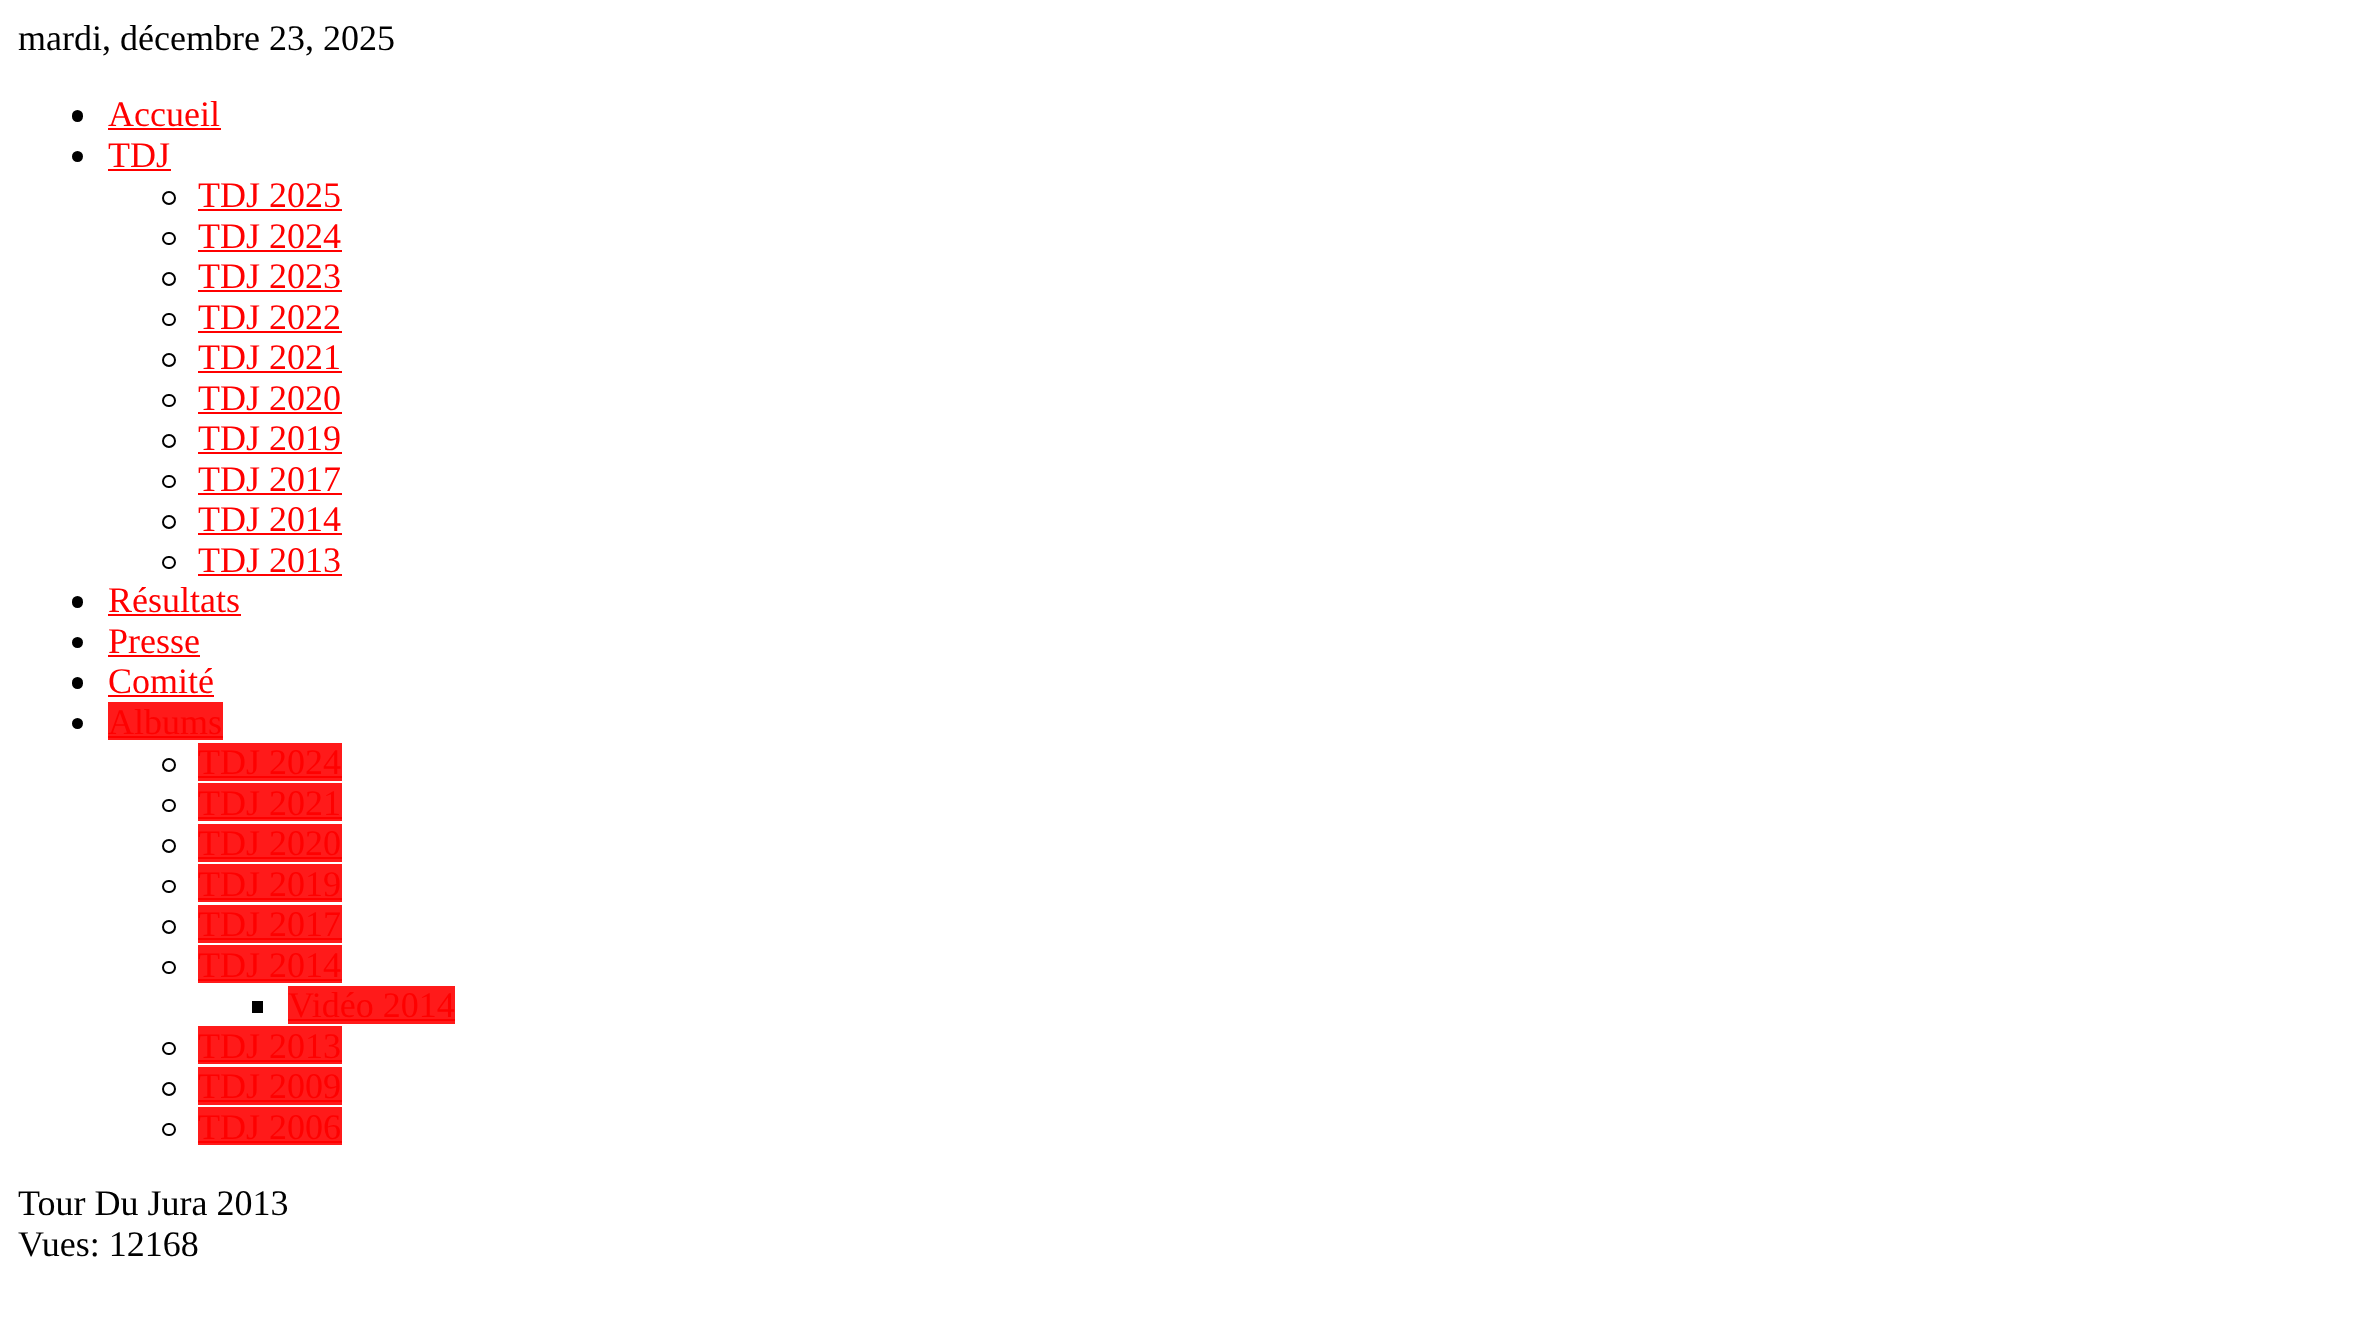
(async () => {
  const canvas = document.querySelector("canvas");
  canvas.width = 2370;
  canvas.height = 1343;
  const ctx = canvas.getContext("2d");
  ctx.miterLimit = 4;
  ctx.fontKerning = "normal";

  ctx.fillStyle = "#ffffff";
  ctx.fillRect(0, 0, 2370, 1343);
  ctx.fillStyle = "#000000";
  ctx.beginPath();
  ctx.roundRect(72, 110, 11, 12, 5.5);
  ctx.fill();
  ctx.fillStyle = "#ff0000";
  ctx.fillRect(108, 128, 113, 2);
  ctx.fillStyle = "#000000";
  ctx.beginPath();
  ctx.arc(77.5, 156.5, 5.5, 0, Math.PI * 2);
  ctx.fill();
  ctx.fillStyle = "#ff0000";
  ctx.fillRect(108, 169, 63, 2);
  ctx.beginPath();
  ctx.arc(169, 198, 6, 0, Math.PI * 2);
  ctx.strokeStyle = "#000000";
  ctx.lineWidth = 2;
  ctx.stroke();
  ctx.fillRect(198, 209, 144, 2);
  ctx.beginPath();
  ctx.roundRect(163, 233, 12, 11, 5.5);
  ctx.stroke();
  ctx.fillRect(198, 250, 144, 2);
  ctx.beginPath();
  ctx.arc(169, 279, 6, 0, Math.PI * 2);
  ctx.stroke();
  ctx.fillRect(198, 290, 144, 2);
  ctx.beginPath();
  ctx.roundRect(163, 314, 12, 11, 5.5);
  ctx.stroke();
  ctx.fillRect(198, 331, 144, 2);
  ctx.beginPath();
  ctx.arc(169, 360, 6, 0, Math.PI * 2);
  ctx.stroke();
  ctx.fillRect(198, 371, 144, 2);
  ctx.beginPath();
  ctx.roundRect(163, 395, 12, 11, 5.5);
  ctx.stroke();
  ctx.fillRect(198, 412, 144, 2);
  ctx.beginPath();
  ctx.arc(169, 441, 6, 0, Math.PI * 2);
  ctx.stroke();
  ctx.fillRect(198, 452, 144, 2);
  ctx.beginPath();
  ctx.roundRect(163, 476, 12, 11, 5.5);
  ctx.stroke();
  ctx.fillRect(198, 493, 144, 2);
  ctx.beginPath();
  ctx.arc(169, 522, 6, 0, Math.PI * 2);
  ctx.stroke();
  ctx.fillRect(198, 533, 144, 2);
  ctx.beginPath();
  ctx.roundRect(163, 557, 12, 11, 5.5);
  ctx.stroke();
  ctx.fillRect(198, 574, 144, 2);
  ctx.fillStyle = "#000000";
  ctx.beginPath();
  ctx.roundRect(72, 596, 11, 12, 5.5);
  ctx.fill();
  ctx.fillStyle = "#ff0000";
  ctx.fillRect(108, 614, 133, 2);
  ctx.fillStyle = "#000000";
  ctx.beginPath();
  ctx.arc(77.5, 642.5, 5.5, 0, Math.PI * 2);
  ctx.fill();
  ctx.fillStyle = "#ff0000";
  ctx.fillRect(108, 655, 92, 2);
  ctx.fillStyle = "#000000";
  ctx.beginPath();
  ctx.roundRect(72, 677, 11, 12, 5.5);
  ctx.fill();
  ctx.fillStyle = "#ff0000";
  ctx.fillRect(108, 695, 106, 2);
  ctx.fillStyle = "#000000";
  ctx.beginPath();
  ctx.arc(77.5, 723.5, 5.5, 0, Math.PI * 2);
  ctx.fill();
  ctx.fillStyle = "#ff1a1a";
  ctx.fillRect(108, 702, 115, 38);
  ctx.fillStyle = "#ff0000";
  ctx.fillRect(108, 736, 115, 2);
  ctx.beginPath();
  ctx.arc(169, 765, 6, 0, Math.PI * 2);
  ctx.stroke();
  ctx.fillStyle = "#ff1a1a";
  ctx.fillRect(198, 743, 144, 38);
  ctx.fillStyle = "#ff0000";
  ctx.fillRect(198, 776, 144, 2);
  ctx.beginPath();
  ctx.roundRect(163, 800, 12, 11, 5.5);
  ctx.stroke();
  ctx.fillStyle = "#ff1a1a";
  ctx.fillRect(198, 783, 144, 38);
  ctx.fillStyle = "#ff0000";
  ctx.fillRect(198, 817, 144, 2);
  ctx.beginPath();
  ctx.arc(169, 846, 6, 0, Math.PI * 2);
  ctx.stroke();
  ctx.fillStyle = "#ff1a1a";
  ctx.fillRect(198, 824, 144, 38);
  ctx.fillStyle = "#ff0000";
  ctx.fillRect(198, 857, 144, 2);
  ctx.beginPath();
  ctx.roundRect(163, 881, 12, 11, 5.5);
  ctx.stroke();
  ctx.fillStyle = "#ff1a1a";
  ctx.fillRect(198, 864, 144, 38);
  ctx.fillStyle = "#ff0000";
  ctx.fillRect(198, 898, 144, 2);
  ctx.beginPath();
  ctx.arc(169, 927, 6, 0, Math.PI * 2);
  ctx.stroke();
  ctx.fillStyle = "#ff1a1a";
  ctx.fillRect(198, 905, 144, 38);
  ctx.fillStyle = "#ff0000";
  ctx.fillRect(198, 938, 144, 2);
  ctx.beginPath();
  ctx.roundRect(163, 962, 12, 11, 5.5);
  ctx.stroke();
  for (const [x, y, w, h, color] of [
    [198, 945, 144, 38, "#ff1a1a"],
    [198, 979, 144, 2, "#ff0000"],
    [252, 1001, 11, 12, "#000000"],
    [288, 986, 167, 38, "#ff1a1a"],
    [288, 1019, 167, 2, "#ff0000"],
  ]) {
    ctx.fillStyle = color;
    ctx.fillRect(x, y, w, h);
  }
  ctx.beginPath();
  ctx.roundRect(163, 1043, 12, 11, 5.5);
  ctx.stroke();
  ctx.fillStyle = "#ff1a1a";
  ctx.fillRect(198, 1026, 144, 38);
  ctx.fillStyle = "#ff0000";
  ctx.fillRect(198, 1060, 144, 2);
  ctx.beginPath();
  ctx.arc(169, 1089, 6, 0, Math.PI * 2);
  ctx.stroke();
  ctx.fillStyle = "#ff1a1a";
  ctx.fillRect(198, 1067, 144, 38);
  ctx.fillStyle = "#ff0000";
  ctx.fillRect(198, 1100, 144, 2);
  ctx.beginPath();
  ctx.roundRect(163, 1124, 12, 11, 5.5);
  ctx.stroke();
  ctx.fillStyle = "#ff1a1a";
  ctx.fillRect(198, 1107, 144, 38);
  ctx.fillStyle = "#ff0000";
  ctx.fillRect(198, 1141, 144, 2);
  ctx.font = "36px Liberation Serif";
  ctx.fillStyle = "#000000";
  ctx.fillText("mardi, décembre 23, 2025", 18, 50);
  ctx.fillStyle = "#ff0000";
  for (const [text, x, y] of [
    ["Accueil", 108, 126],
    ["TDJ", 108, 167],
    ["TDJ 2025", 198, 207],
    ["TDJ 2024", 198, 248],
    ["TDJ 2023", 198, 288],
    ["TDJ 2022", 198, 329],
    ["TDJ 2021", 198, 369],
    ["TDJ 2020", 198, 410],
    ["TDJ 2019", 198, 450],
    ["TDJ 2017", 198, 491],
    ["TDJ 2014", 198, 531],
    ["TDJ 2013", 198, 572],
    ["Résultats", 108, 612],
    ["Presse", 108, 653],
    ["Comité", 108, 693],
    ["Albums", 108, 734],
    ["TDJ 2024", 198, 774],
    ["TDJ 2021", 198, 815],
    ["TDJ 2020", 198, 855],
    ["TDJ 2019", 198, 896],
    ["TDJ 2017", 198, 936],
    ["TDJ 2014", 198, 977],
    ["Vidéo 2014", 288, 1017],
    ["TDJ 2013", 198, 1058],
    ["TDJ 2009", 198, 1098],
    ["TDJ 2006", 198, 1139],
  ]) {
    ctx.fillText(text, x, y);
  }
  ctx.fillStyle = "#000000";
  ctx.fillText("Tour Du Jura 2013", 18, 1215);
  ctx.fillText("Vues: 12168", 18, 1256);
})();
